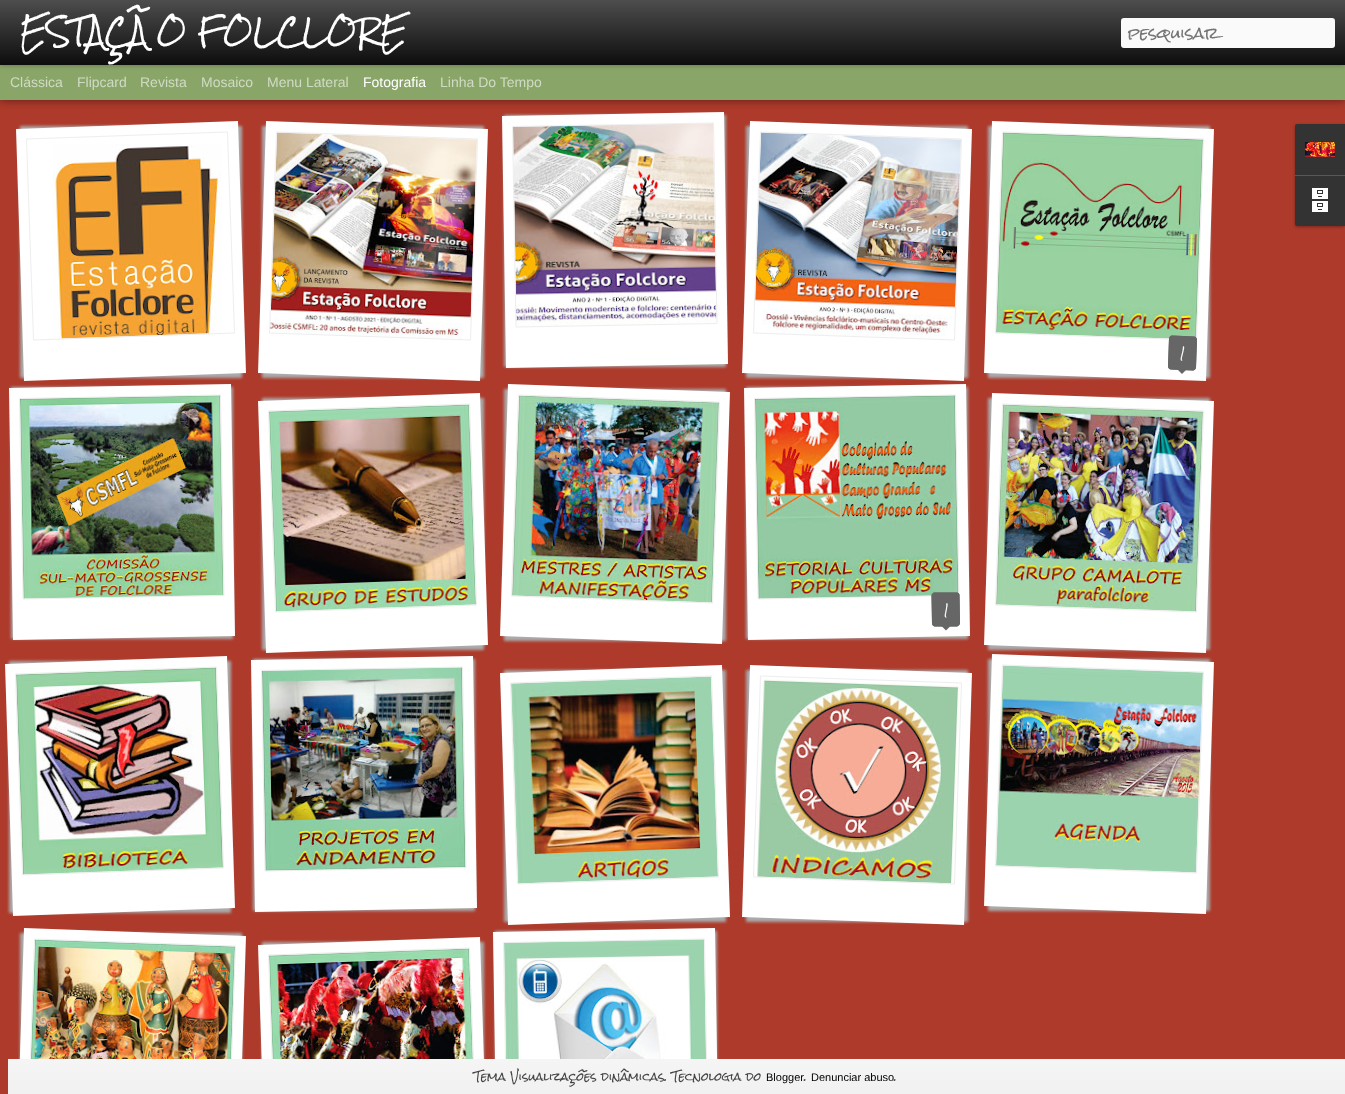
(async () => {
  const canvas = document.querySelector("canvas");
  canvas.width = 1345;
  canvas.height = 1094;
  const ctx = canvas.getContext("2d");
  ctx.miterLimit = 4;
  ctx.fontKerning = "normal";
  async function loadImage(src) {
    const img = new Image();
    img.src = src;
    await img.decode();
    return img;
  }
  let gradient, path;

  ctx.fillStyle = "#ad3a2b";
  ctx.fillRect(0, 0, 1345, 1094);
  ctx.fillStyle = "#aaaaaa";
  ctx.filter = "blur(1.5px)";
  ctx.beginPath();
  ctx.rect(504, 115, 222, 252);
  ctx.fill();
  ctx.filter = "none";
  ctx.fillStyle = "#ffffff";
  path = new Path2D("M502 116L724 112L728 364L506 368Z");
  ctx.fill(path);
  ctx.fillStyle = "rgba(0, 0, 0, 0.5)";
  ctx.filter = "blur(4px)";
  ctx.beginPath();
  ctx.rect(0, 65, 1345, 35);
  ctx.fill();
  ctx.filter = "none";
  ctx.fillStyle = "#89a568";
  ctx.fillRect(0, 65, 1345, 35);
  ctx.fillStyle = "rgba(0, 0, 0, 0.3)";
  ctx.filter = "blur(2.5px)";
  ctx.beginPath();
  ctx.rect(0, 0, 1345, 65);
  ctx.fill();
  ctx.filter = "none";
  gradient = ctx.createLinearGradient(0, 0, 0, 65);
  gradient.addColorStop(0, "#4d4d4d");
  gradient.addColorStop(1, "#0d0d0d");
  ctx.fillStyle = gradient;
  ctx.fillRect(0, 0, 1345, 65);
  ctx.fillStyle = "#fafafa";
  ctx.beginPath();
  ctx.roundRect(1121, 18, 214, 30, 3);
  ctx.fill();
  ctx.fillStyle = "rgba(0, 0, 0, 0.3)";
  ctx.filter = "blur(1.5px)";
  ctx.beginPath();
  ctx.roundRect(1295, 125, 50, 102, 2);
  ctx.fill();
  ctx.filter = "none";
  ctx.fillStyle = "#333333";
  ctx.beginPath();
  ctx.roundRect(1295, 124, 50, 51, [2, 0, 0, 0]);
  ctx.fill();
  ctx.drawImage(await loadImage("img/1.png"), 1305, 142, 30, 15);
  ctx.beginPath();
  ctx.roundRect(1295, 175, 50, 51, [0, 0, 0, 2]);
  ctx.fill();
  ctx.fillStyle = "#585858";
  ctx.fillRect(1295, 175, 50, 1);
  ctx.drawImage(await loadImage("img/2.png"), 1312, 188, 16, 24);
  ctx.fillStyle = "#aaaaaa";
  ctx.filter = "blur(1.5px)";
  ctx.beginPath();
  ctx.rect(20, 126, 222, 252);
  ctx.fill();
  ctx.filter = "none";
  ctx.fillStyle = "#ffffff";
  path = new Path2D("M16 129L238 121L246 373L24 381Z");
  ctx.fill(path);
  ctx.drawImage(await loadImage("img/3.png"), 53, 144, 169, 195);
  path = new Path2D("M26.5 139L227.5 132L234.5 333L33.5 340Z");
  ctx.strokeStyle = "#eeeeee";
  ctx.stroke(path);
  ctx.fillStyle = "#aaaaaa";
  ctx.filter = "blur(1.5px)";
  ctx.beginPath();
  ctx.rect(262, 126, 222, 252);
  ctx.fill();
  ctx.filter = "none";
  ctx.fillStyle = "#ffffff";
  path = new Path2D("M266 121L488 129L480 381L258 373Z");
  ctx.fill(path);
  ctx.drawImage(await loadImage("img/4.png"), 270, 132, 207, 207);
  path = new Path2D("M276.5 132L477.5 139L470.5 340L269.5 333Z");
  ctx.stroke(path);
  ctx.drawImage(await loadImage("img/5.png"), 513, 123, 204, 204);
  path = new Path2D("M512.5 126.5L713.5 123L717 323.5L516 327Z");
  ctx.stroke(path);
  ctx.fillStyle = "#aaaaaa";
  ctx.filter = "blur(1.5px)";
  ctx.beginPath();
  ctx.rect(746, 126, 222, 252);
  ctx.fill();
  ctx.filter = "none";
  ctx.fillStyle = "#ffffff";
  path = new Path2D("M750 121L972 129L964 381L742 373Z");
  ctx.fill(path);
  ctx.drawImage(await loadImage("img/6.png"), 755, 132, 206, 207);
  path = new Path2D("M760.5 132L961.5 139L954.5 340L753.5 333Z");
  ctx.stroke(path);
  ctx.fillStyle = "#aaaaaa";
  ctx.filter = "blur(1.5px)";
  ctx.beginPath();
  ctx.rect(988, 126, 222, 252);
  ctx.fill();
  ctx.filter = "none";
  ctx.fillStyle = "#ffffff";
  path = new Path2D("M992 121L1214 129L1206 381L984 373Z");
  ctx.fill(path);
  ctx.drawImage(await loadImage("img/7.png"), 996, 132, 207, 207);
  path = new Path2D("M1002.5 132L1203.5 139L1196.5 340L995.5 333Z");
  ctx.stroke(path);
  ctx.fillStyle = "#666666";
  path = new Path2D("M1172 335.5L1194 336.5C1195.5 336.5 1197 338 1197 339.5L1196 367.5C1196 369 1194.5 370.5 1193 370.5L1171 369.5C1169 369.5 1168 368 1168 366.5L1169 338.5C1169 337 1170.5 335.5 1172 335.5Z");
  ctx.fill(path);
  path = new Path2D("M1172 336L1194 337C1195.5 337 1196.5 338 1196.5 339.5L1195.5 367.5C1195.5 369 1194.5 370 1193 370L1171 369C1169.5 369 1168.5 368 1168.5 366.5L1169.5 338.5C1169.5 337 1170.5 336 1172 336Z");
  ctx.strokeStyle = "#666666";
  ctx.stroke(path);
  path = new Path2D("M1177 369H1187L1182 374Z");
  ctx.fill(path);
  ctx.fillStyle = "#aaaaaa";
  ctx.filter = "blur(1.5px)";
  ctx.beginPath();
  ctx.rect(11, 387, 222, 252);
  ctx.fill();
  ctx.filter = "none";
  ctx.fillStyle = "#ffffff";
  path = new Path2D("M9 388L231 384L235 636L13 640Z");
  ctx.fill(path);
  ctx.drawImage(await loadImage("img/8.png"), 20, 395, 204, 204);
  path = new Path2D("M19.5 398.5L220.5 395L224 595.5L23 599Z");
  ctx.strokeStyle = "#eeeeee";
  ctx.stroke(path);
  ctx.fillStyle = "#aaaaaa";
  ctx.filter = "blur(1.5px)";
  ctx.beginPath();
  ctx.rect(262, 398, 222, 252);
  ctx.fill();
  ctx.filter = "none";
  ctx.fillStyle = "#ffffff";
  path = new Path2D("M258 401L480 393L488 645L266 653Z");
  ctx.fill(path);
  ctx.drawImage(await loadImage("img/9.png"), 269, 404, 207, 208);
  path = new Path2D("M268.5 411L469.5 404L476.5 605L275.5 612Z");
  ctx.stroke(path);
  ctx.fillStyle = "#aaaaaa";
  ctx.filter = "blur(1.5px)";
  ctx.beginPath();
  ctx.rect(504, 389, 222, 252);
  ctx.fill();
  ctx.filter = "none";
  ctx.fillStyle = "#ffffff";
  path = new Path2D("M508 384L730 392L722 644L500 636Z");
  ctx.fill(path);
  ctx.drawImage(await loadImage("img/10.png"), 512, 395, 207, 208);
  path = new Path2D("M518.5 395L719.5 402L712.5 603L511.5 596Z");
  ctx.stroke(path);
  ctx.fillStyle = "#aaaaaa";
  ctx.filter = "blur(1.5px)";
  ctx.beginPath();
  ctx.rect(746, 387, 222, 252);
  ctx.fill();
  ctx.filter = "none";
  ctx.fillStyle = "#ffffff";
  path = new Path2D("M744 388L966 384L970 636L748 640Z");
  ctx.fill(path);
  ctx.drawImage(await loadImage("img/11.png"), 755, 395, 204, 204);
  path = new Path2D("M754.5 398.5L955.5 395L959 595.5L758 599Z");
  ctx.stroke(path);
  ctx.fillStyle = "#666666";
  path = new Path2D("M934.5 592.5H956.5C958 592 959.5 593.5 959.5 595L960 623C960 625 958.5 626 957 626.5H935C933.5 626.5 932 625.5 932 623.5L931.5 595.5C931.5 594 933 592.5 934.5 592.5Z");
  ctx.fill(path);
  path = new Path2D("M934.5 593H956.5C958 593 959 594 959 595L959.5 623C959.5 624.5 958.5 625.5 957 626H935C933.5 626 932.5 625 932.5 623.5L932 595.5C932 594.5 933 593 934.5 593Z");
  ctx.strokeStyle = "#666666";
  ctx.stroke(path);
  path = new Path2D("M941 625.5H951L946 630.5Z");
  ctx.fill(path);
  ctx.fillStyle = "#aaaaaa";
  ctx.filter = "blur(1.5px)";
  ctx.beginPath();
  ctx.rect(988, 398, 222, 252);
  ctx.fill();
  ctx.filter = "none";
  ctx.fillStyle = "#ffffff";
  path = new Path2D("M992 393L1214 401L1206 653L984 645Z");
  ctx.fill(path);
  ctx.drawImage(await loadImage("img/12.png"), 996, 404, 207, 208);
  path = new Path2D("M1002.5 404L1203.5 411L1196.5 612L995.5 605Z");
  ctx.strokeStyle = "#eeeeee";
  ctx.stroke(path);
  ctx.fillStyle = "#aaaaaa";
  ctx.filter = "blur(1.5px)";
  ctx.beginPath();
  ctx.rect(9, 661, 222, 252);
  ctx.fill();
  ctx.filter = "none";
  ctx.fillStyle = "#ffffff";
  path = new Path2D("M5 664L227 656L235 908L13 916Z");
  ctx.fill(path);
  ctx.drawImage(await loadImage("img/13.png"), 16, 667, 207, 208);
  path = new Path2D("M15.5 674L216.5 667L223.5 868L22.5 875Z");
  ctx.stroke(path);
  ctx.fillStyle = "#aaaaaa";
  ctx.filter = "blur(1.5px)";
  ctx.beginPath();
  ctx.rect(253, 659, 222, 252);
  ctx.fill();
  ctx.filter = "none";
  ctx.fillStyle = "#ffffff";
  path = new Path2D("M251 660L473 656L477 908L255 912Z");
  ctx.fill(path);
  ctx.drawImage(await loadImage("img/14.png"), 262, 667, 204, 204);
  path = new Path2D("M261.5 670.5L462.5 667L466 867.5L265 871Z");
  ctx.stroke(path);
  ctx.fillStyle = "#aaaaaa";
  ctx.filter = "blur(1.5px)";
  ctx.beginPath();
  ctx.rect(504, 670, 222, 252);
  ctx.fill();
  ctx.filter = "none";
  ctx.fillStyle = "#ffffff";
  path = new Path2D("M500 673L722 665L730 917L508 925Z");
  ctx.fill(path);
  ctx.drawImage(await loadImage("img/15.png"), 511, 676, 207, 208);
  path = new Path2D("M510.5 683L711.5 676L718.5 877L517.5 884Z");
  ctx.stroke(path);
  ctx.fillStyle = "#aaaaaa";
  ctx.filter = "blur(1.5px)";
  ctx.beginPath();
  ctx.rect(746, 670, 222, 252);
  ctx.fill();
  ctx.filter = "none";
  ctx.fillStyle = "#ffffff";
  path = new Path2D("M750 665L972 673L964 925L742 917Z");
  ctx.fill(path);
  ctx.drawImage(await loadImage("img/16.png"), 757, 678, 203, 206);
  path = new Path2D("M760.5 676L961.5 683L954.5 884L753.5 877Z");
  ctx.stroke(path);
  ctx.fillStyle = "#aaaaaa";
  ctx.filter = "blur(1.5px)";
  ctx.beginPath();
  ctx.rect(988, 659, 222, 252);
  ctx.fill();
  ctx.filter = "none";
  ctx.fillStyle = "#ffffff";
  path = new Path2D("M992 654L1214 662L1206 914L984 906Z");
  ctx.fill(path);
  ctx.drawImage(await loadImage("img/17.png"), 996, 665, 207, 208);
  path = new Path2D("M1002.5 665L1203.5 672L1196.5 873L995.5 866Z");
  ctx.stroke(path);
  ctx.fillStyle = "#aaaaaa";
  ctx.filter = "blur(1.5px)";
  ctx.beginPath();
  ctx.rect(20, 933, 222, 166);
  ctx.fill();
  ctx.filter = "none";
  ctx.fillStyle = "#ffffff";
  path = new Path2D("M24 928L246 936L238 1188L16 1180Z");
  ctx.fill(path);
  ctx.drawImage(await loadImage("img/18.png"), 30, 939, 205, 120);
  path = new Path2D("M34.5 939L235.5 946L228.5 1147L27.5 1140Z");
  ctx.stroke(path);
  ctx.fillStyle = "#aaaaaa";
  ctx.filter = "blur(1.5px)";
  ctx.beginPath();
  ctx.rect(262, 942, 222, 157);
  ctx.fill();
  ctx.filter = "none";
  ctx.fillStyle = "#ffffff";
  path = new Path2D("M258 945L480 937L488 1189L266 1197Z");
  ctx.fill(path);
  ctx.drawImage(await loadImage("img/19.png"), 269, 948, 204, 111);
  path = new Path2D("M268.5 955L469.5 948L476.5 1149L275.5 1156Z");
  ctx.stroke(path);
  ctx.fillStyle = "#aaaaaa";
  ctx.filter = "blur(1.5px)";
  ctx.beginPath();
  ctx.rect(495, 931, 222, 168);
  ctx.fill();
  ctx.filter = "none";
  ctx.fillStyle = "#ffffff";
  path = new Path2D("M493 932L715 928L719 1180L497 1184Z");
  ctx.fill(path);
  ctx.drawImage(await loadImage("img/20.png"), 504, 939, 203, 120);
  path = new Path2D("M503.5 942.5L704.5 939L708 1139.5L507 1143Z");
  ctx.stroke(path);
  gradient = ctx.createLinearGradient(686, 1059, 686, 1094);
  gradient.addColorStop(0, "#f5f5f5");
  gradient.addColorStop(1, "#f1f1f1");
  ctx.fillStyle = gradient;
  ctx.fillRect(8, 1059, 1337, 35);
  ctx.font = "28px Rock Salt";
  ctx.fillStyle = "#ffffff";
  ctx.fillText("ESTAÇÃO FOLCLORE", 20, 43);
  ctx.font = "15px Rock Salt";
  ctx.fillStyle = "#757575";
  ctx.fillText("pesquisar", 1128, 39);
  ctx.font = "14px Liberation Sans";
  ctx.fillStyle = "#d0dbc3";
  for (const [text, x, y] of [
    ["Clássica", 10, 87],
    ["Flipcard", 77, 87],
    ["Revista", 140, 87],
    ["Mosaico", 201, 87],
    ["Menu Lateral", 267, 87],
  ]) {
    ctx.fillText(text, x, y);
  }
  ctx.fillStyle = "#ffffff";
  ctx.fillText("Fotografia", 363, 87);
  ctx.fillStyle = "#d0dbc3";
  ctx.fillText("Linha Do Tempo", 440, 87);
  ctx.font = "12px Rock Salt";
  ctx.fillStyle = "#ffffff";
  ctx.save();
  ctx.translate(1179, 358);
  ctx.rotate(2 * Math.PI / 180);
  ctx.fillText("1", 0, 0);
  ctx.restore();
  ctx.save();
  ctx.translate(943, 615);
  ctx.rotate(-1 * Math.PI / 180);
  ctx.fillText("1", 0, 0);
  ctx.restore();
  ctx.font = "11px Rock Salt";
  ctx.fillStyle = "#444444";
  ctx.fillText("Tema Visualizações dinâmicas. Tecnologia do", 474, 1081);
  ctx.font = "11px Liberation Sans";
  ctx.fillStyle = "#000000";
  ctx.fillText("Blogger", 766, 1081);
  ctx.font = "11px Rock Salt";
  ctx.fillStyle = "#444444";
  ctx.fillText(".", 804, 1081);
  ctx.font = "11px Liberation Sans";
  ctx.fillStyle = "#000000";
  ctx.fillText("Denunciar abuso", 811, 1081);
  ctx.font = "11px Rock Salt";
  ctx.fillStyle = "#444444";
  ctx.fillText(".", 894, 1081);
})();
